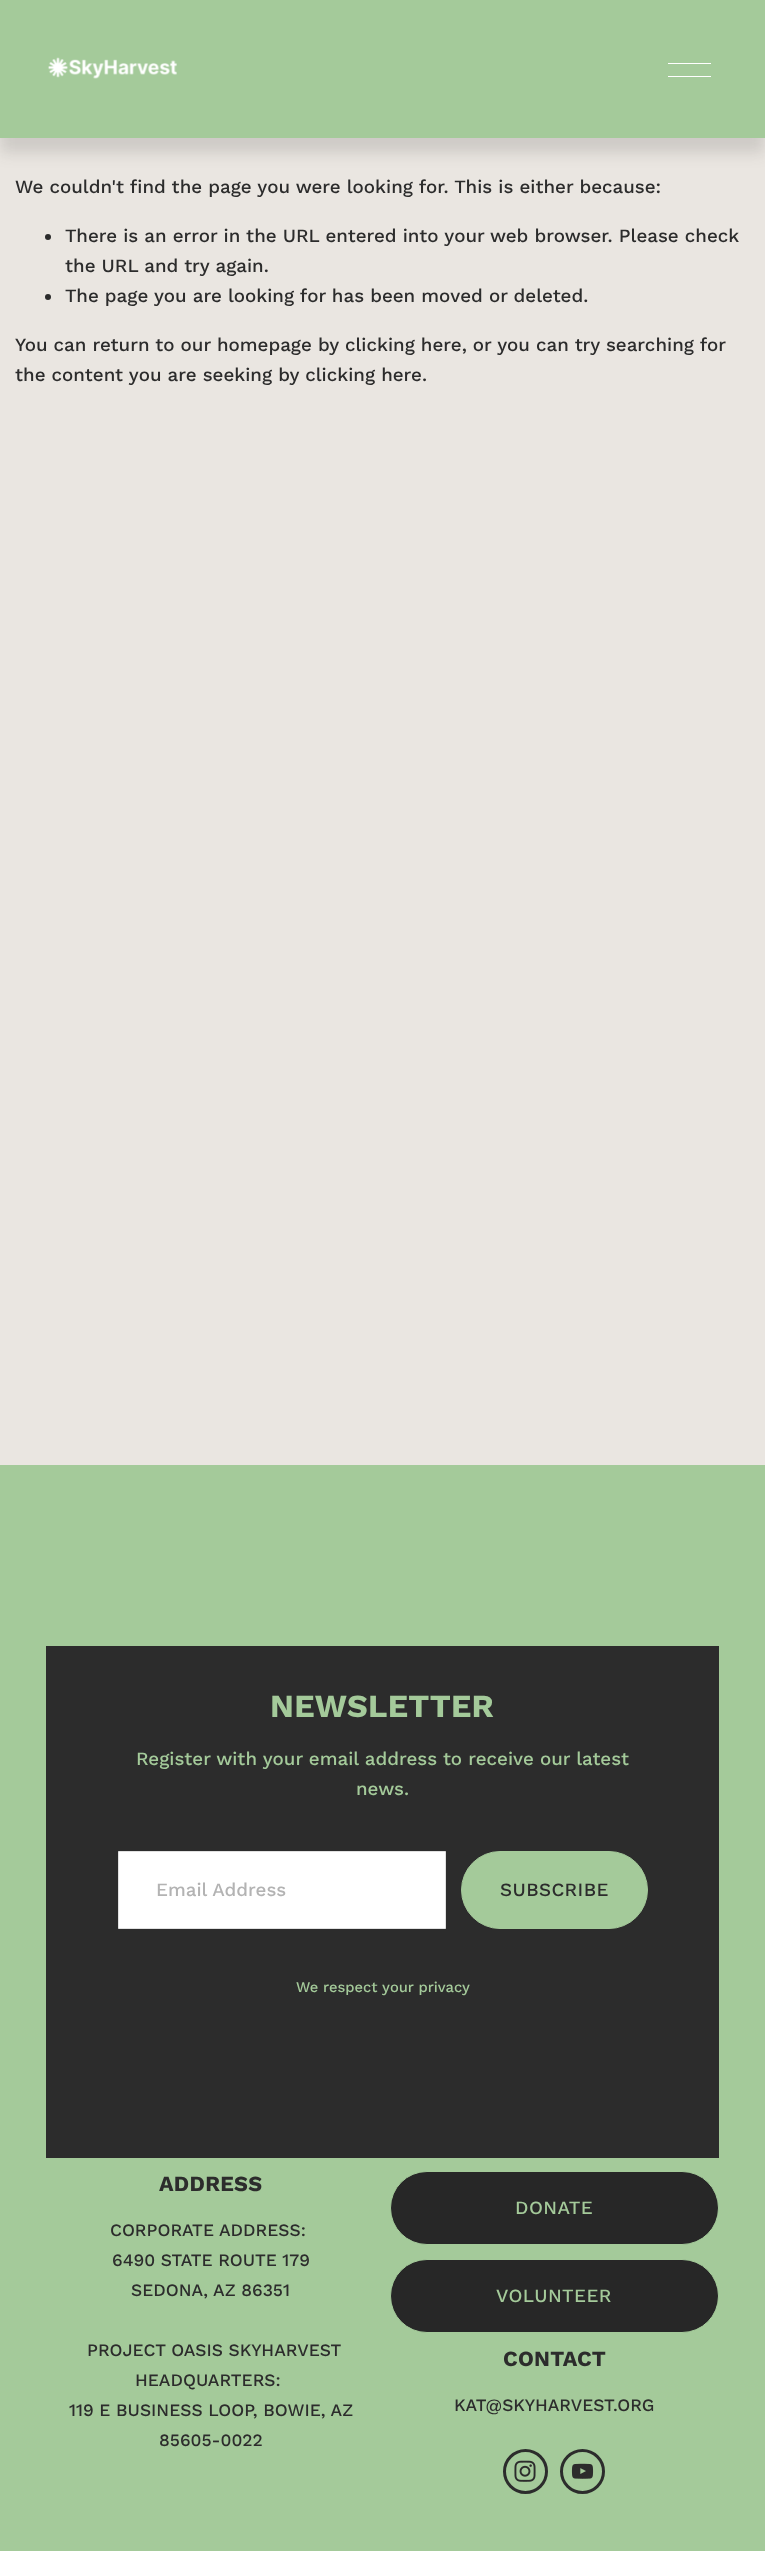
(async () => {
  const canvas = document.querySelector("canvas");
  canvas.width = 765;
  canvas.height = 2551;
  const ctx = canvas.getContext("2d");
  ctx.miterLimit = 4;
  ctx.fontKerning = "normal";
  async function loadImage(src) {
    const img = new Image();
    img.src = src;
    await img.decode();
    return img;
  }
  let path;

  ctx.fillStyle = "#eae6e1";
  ctx.fillRect(0, 0, 765, 2551);
  ctx.fillStyle = "#a4ca9a";
  ctx.fillRect(0, 0, 765, 138);
  ctx.save();
  path = new Path2D("M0 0H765V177H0ZM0 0H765V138H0Z");
  ctx.clip(path, "evenodd");
  ctx.fillStyle = "rgba(44, 44, 44, 0.15)";
  ctx.filter = "blur(7.5px)";
  ctx.beginPath();
  ctx.rect(0, 15, 765, 138);
  ctx.fill();
  ctx.filter = "none";
  ctx.restore();
  ctx.drawImage(await loadImage("img/1.png"), 48, 57, 129, 22);
  ctx.fillStyle = "#ffffff";
  ctx.fillRect(668, 63, 43, 1);
  ctx.fillRect(668, 76, 43, 1);
  ctx.fillStyle = "#2c2c2c";
  ctx.beginPath();
  ctx.arc(48, 237, 3, 0, Math.PI * 2);
  ctx.fill();
  ctx.beginPath();
  ctx.arc(48, 297, 3, 0, Math.PI * 2);
  ctx.fill();
  ctx.fillStyle = "#a4ca9a";
  ctx.fillRect(0, 1465, 765, 1086);
  ctx.fillStyle = "#2c2c2c";
  ctx.fillRect(46, 1646, 673, 512);
  ctx.fillStyle = "#ffffff";
  ctx.beginPath();
  ctx.rect(118.5, 1851.5, 327, 77);
  ctx.fill();
  ctx.strokeStyle = "#e0e0e0";
  ctx.stroke();
  ctx.fillStyle = "#a4ca9a";
  ctx.beginPath();
  ctx.roundRect(461.5, 1851.5, 186, 77, 38.5);
  ctx.fill();
  ctx.strokeStyle = "#a4ca9a";
  ctx.stroke();
  ctx.fillStyle = "#272727";
  ctx.beginPath();
  ctx.roundRect(390.5, 2171.5, 328, 73, 36.5);
  ctx.fill();
  ctx.stroke();
  ctx.beginPath();
  ctx.roundRect(390.5, 2259.5, 328, 73, 36.5);
  ctx.fill();
  ctx.stroke();
  ctx.beginPath();
  ctx.arc(525.5, 2471.5, 21, 0, Math.PI * 2);
  ctx.strokeStyle = "#2c2c2c";
  ctx.lineWidth = 3;
  ctx.stroke();
  ctx.drawImage(await loadImage("img/2.png"), 514, 2460, 22, 22);
  ctx.beginPath();
  ctx.arc(582.5, 2471.5, 21, 0, Math.PI * 2);
  ctx.stroke();
  ctx.drawImage(await loadImage("img/3.png"), 571, 2463, 23, 16);
  ctx.font = "500 18.75px Work Sans";
  ctx.fillStyle = "#2c2c2c";
  for (const [text, x, y] of [
    ["We couldn't find the page you were looking for. This is either because:", 15, 193],
    ["There is an error in the URL entered into your web browser. Please check", 65, 242],
    ["the URL and try again.", 65, 272],
    ["The page you are looking for has been moved or deleted.", 65, 302],
    ["You can return to our homepage by clicking here, or you can try searching for", 15, 351],
    ["the content you are seeking by clicking here.", 15, 381],
  ]) {
    ctx.fillText(text, x, y);
  }
  ctx.letterSpacing = "0.25px";
  ctx.font = "bold 32.25px Work Sans";
  ctx.fillStyle = "#a4ca9a";
  ctx.fillText("NEWSLETTER", 270, 1717);
  ctx.letterSpacing = "0px";
  ctx.font = "500 18.75px Work Sans";
  ctx.fillText("Register with your email address to receive our latest", 136, 1765);
  ctx.fillText("news.", 356, 1795);
  ctx.fillStyle = "#b3b3b3";
  ctx.fillText("Email Address", 156, 1896);
  ctx.letterSpacing = "0.4px";
  ctx.fillStyle = "#2c2c2c";
  ctx.fillText("SUBSCRIBE", 500, 1896);
  ctx.letterSpacing = "0px";
  ctx.font = "500 14.75px Work Sans";
  ctx.fillStyle = "#a4ca9a";
  ctx.fillText("We respect your privacy", 296, 1992);
  ctx.letterSpacing = "0.25px";
  ctx.font = "bold 21.5px Work Sans";
  ctx.fillStyle = "#2c2c2c";
  ctx.fillText("ADDRESS", 159, 2191);
  ctx.letterSpacing = "0.4px";
  ctx.font = "500 18.75px Work Sans";
  ctx.fillStyle = "#a4ca9a";
  ctx.fillText("DONATE", 515, 2214);
  ctx.letterSpacing = "0px";
  ctx.font = "500 17.4px Work Sans";
  ctx.fillStyle = "#2c2c2c";
  for (const [text, x, y] of [
    ["CORPORATE ADDRESS:", 110, 2236],
    ["6490 STATE ROUTE 179", 112, 2266],
    ["SEDONA, AZ 86351", 131, 2296],
    ["PROJECT OASIS SKYHARVEST", 87, 2356],
    ["HEADQUARTERS:", 135, 2386],
    ["119 E BUSINESS LOOP, BOWIE, AZ", 69, 2416],
    ["85605-0022", 159, 2446],
  ]) {
    ctx.fillText(text, x, y);
  }
  ctx.letterSpacing = "0.4px";
  ctx.font = "500 18.75px Work Sans";
  ctx.fillStyle = "#a4ca9a";
  ctx.fillText("VOLUNTEER", 496, 2302);
  ctx.letterSpacing = "0.25px";
  ctx.font = "bold 21.5px Work Sans";
  ctx.fillStyle = "#2c2c2c";
  ctx.fillText("CONTACT", 503, 2366);
  ctx.letterSpacing = "0px";
  ctx.font = "500 17.4px Work Sans";
  ctx.fillText("KAT@SKYHARVEST.ORG", 454, 2411);
})();
